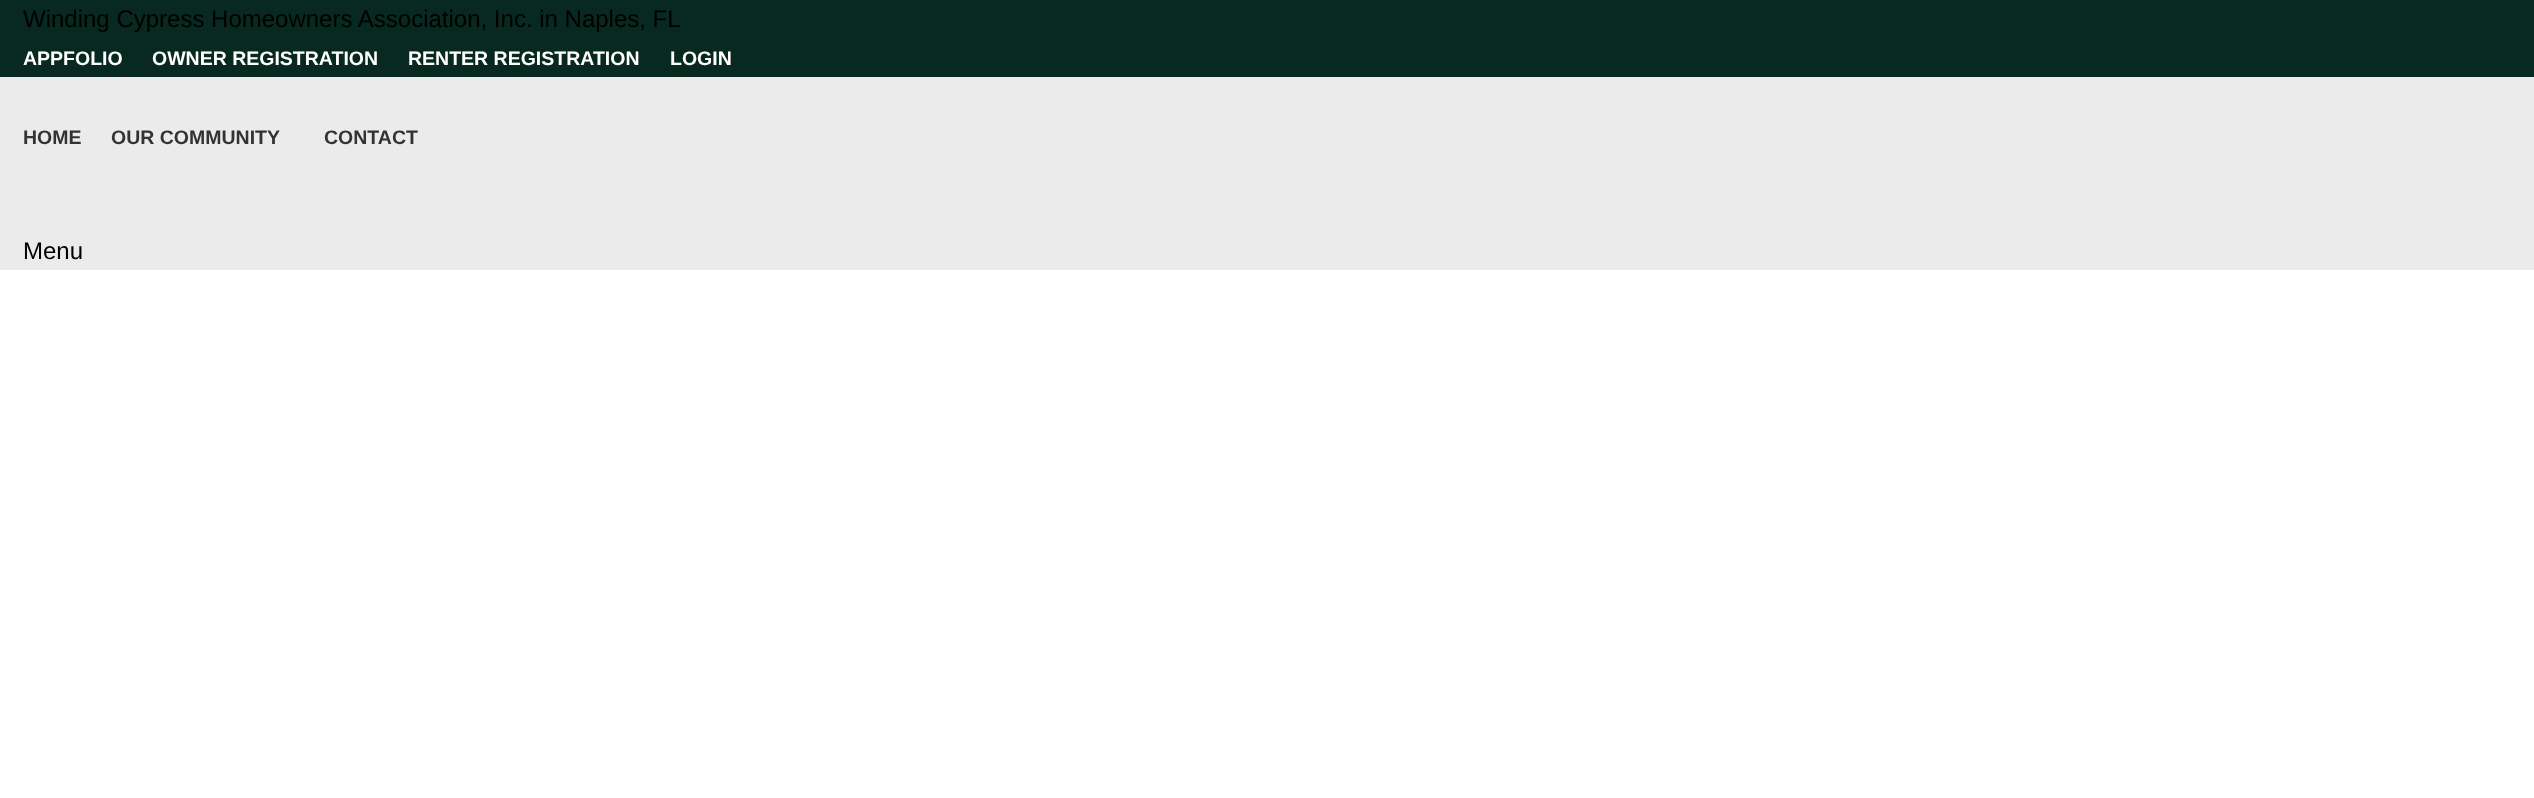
(async () => {
  const canvas = document.querySelector("canvas");
  canvas.width = 2534;
  canvas.height = 798;
  const ctx = canvas.getContext("2d");
  ctx.miterLimit = 4;
  ctx.fontKerning = "normal";

  ctx.fillStyle = "#ffffff";
  ctx.fillRect(0, 0, 2534, 798);
  ctx.fillStyle = "#072920";
  ctx.fillRect(0, 0, 2534, 77);
  ctx.fillStyle = "#ebebeb";
  ctx.fillRect(0, 77, 2534, 193);
  ctx.font = "24px Liberation Sans";
  ctx.fillStyle = "#000000";
  ctx.fillText("Winding Cypress Homeowners Association, Inc. in Naples, FL", 23, 27);
  ctx.font = "bold 19.5px Liberation Sans";
  ctx.fillStyle = "#ffffff";
  for (const [text, x, y] of [
    ["APPFOLIO", 23, 65],
    ["OWNER REGISTRATION", 152, 65],
    ["RENTER REGISTRATION", 408, 65],
    ["LOGIN", 670, 65],
  ]) {
    ctx.fillText(text, x, y);
  }
  ctx.fillStyle = "#333333";
  for (const [text, x, y] of [
    ["HOME", 23, 144],
    ["OUR COMMUNITY", 111, 144],
    ["CONTACT", 324, 144],
  ]) {
    ctx.fillText(text, x, y);
  }
  ctx.font = "24px Liberation Sans";
  ctx.fillStyle = "#000000";
  ctx.fillText("Menu", 23, 259);
})();
